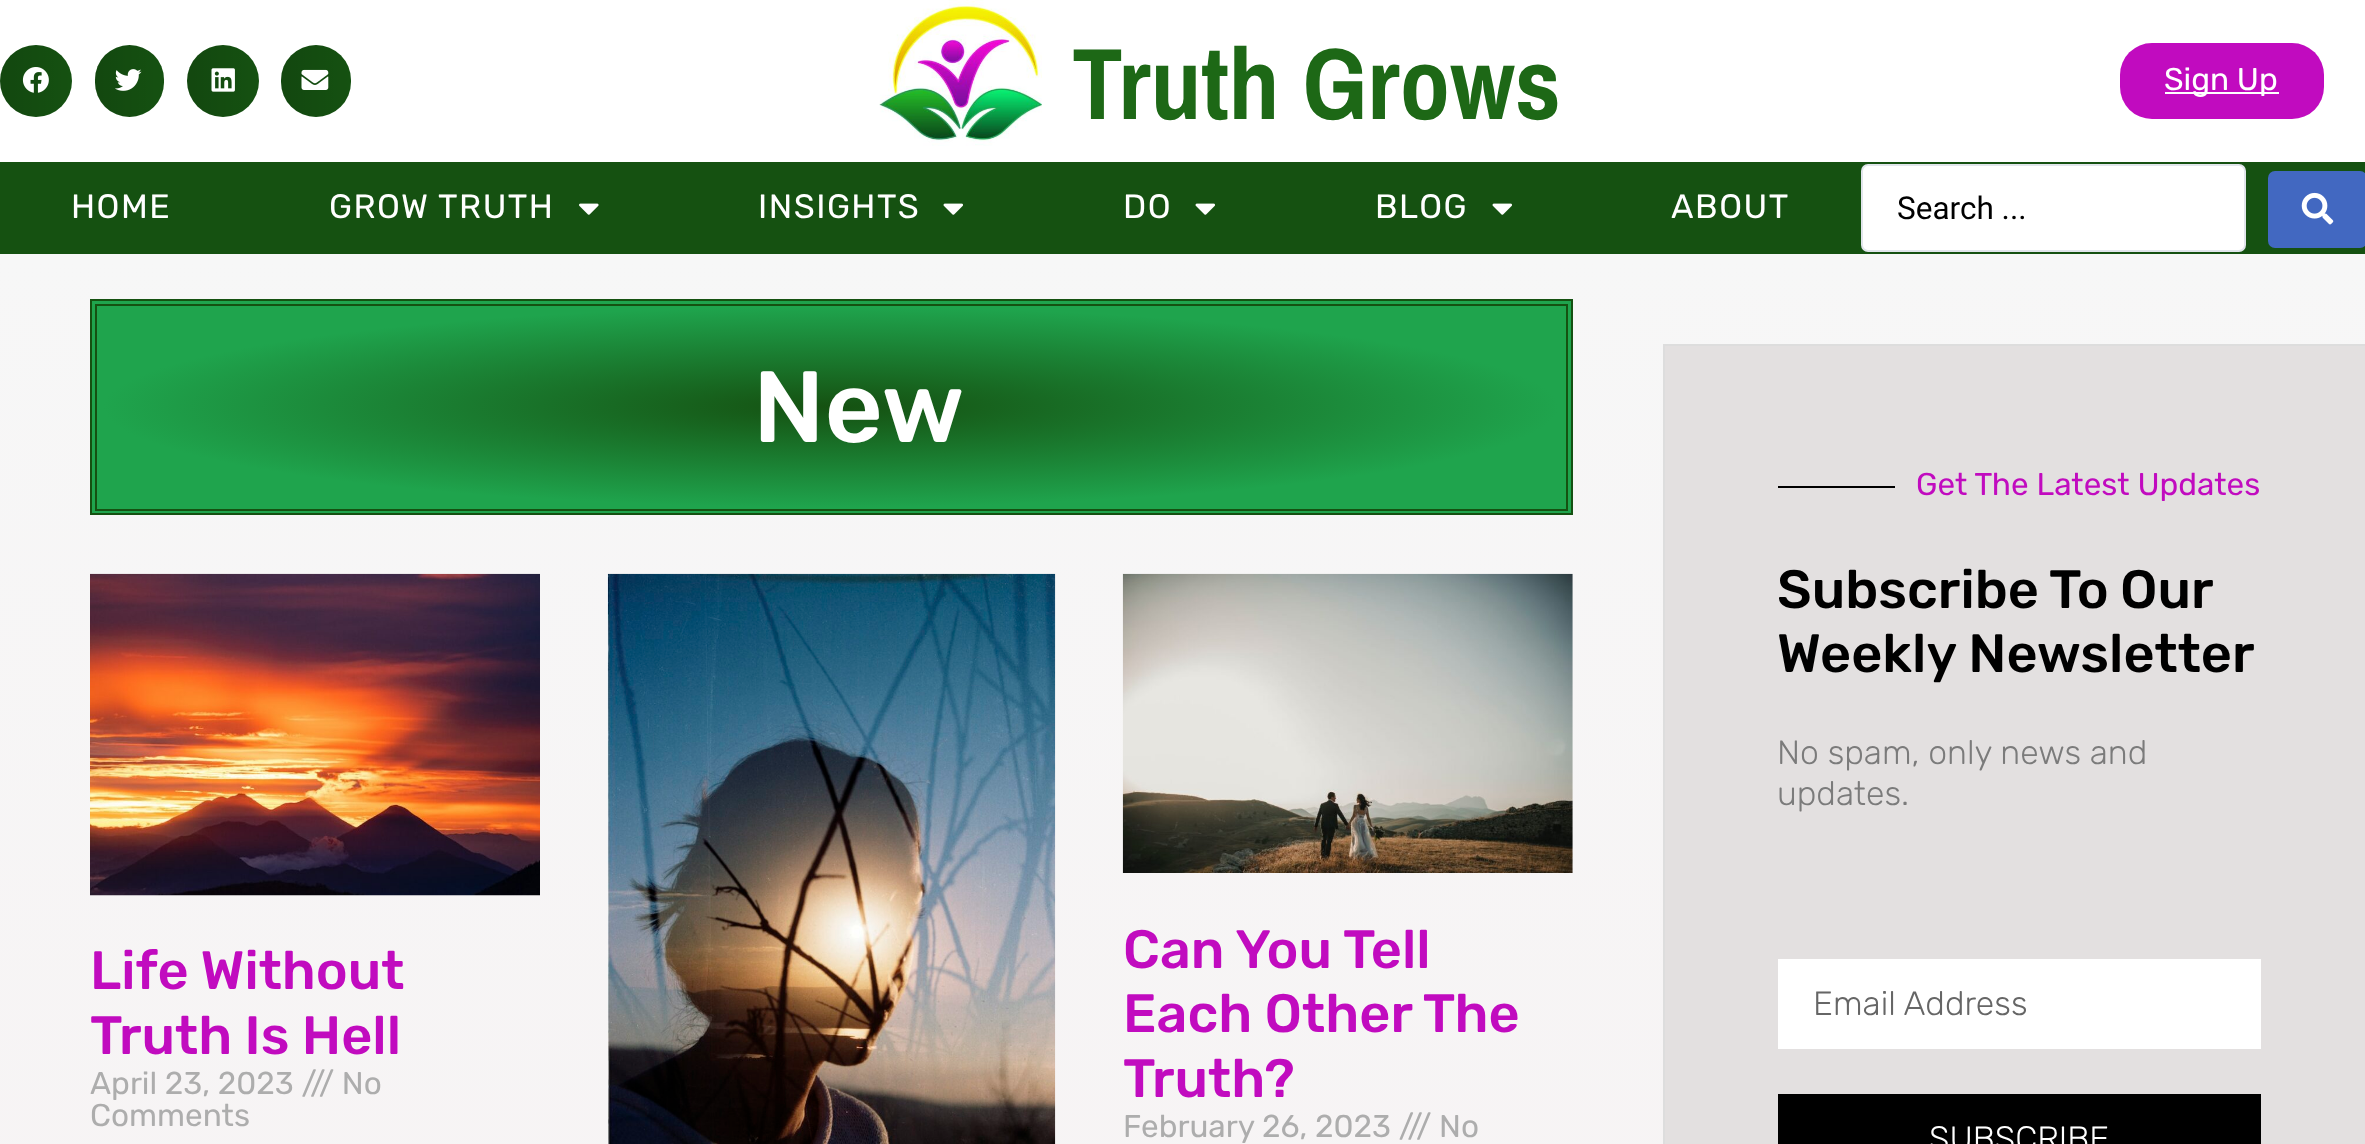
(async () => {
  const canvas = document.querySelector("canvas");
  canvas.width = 2365;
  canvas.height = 1144;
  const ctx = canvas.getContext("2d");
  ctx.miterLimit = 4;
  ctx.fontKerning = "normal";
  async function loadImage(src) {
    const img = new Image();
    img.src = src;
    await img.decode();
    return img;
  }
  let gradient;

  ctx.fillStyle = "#ffffff";
  ctx.fillRect(0, 0, 2365, 1144);
  ctx.fillStyle = "#155111";
  ctx.beginPath();
  ctx.arc(36, 81, 36, 0, Math.PI * 2);
  ctx.fill();
  gradient = ctx.createLinearGradient(0, 81, 72, 81);
  gradient.addColorStop(0, "rgba(0, 0, 0, 0.12)");
  gradient.addColorStop(1, "rgba(0, 0, 0, 0)");
  ctx.fillStyle = gradient;
  ctx.beginPath();
  ctx.arc(36, 81, 36, 0, Math.PI * 2);
  ctx.fill();
  ctx.drawImage(await loadImage("img/1.png"), 22, 67, 27, 26);
  ctx.fillStyle = "#155111";
  ctx.beginPath();
  ctx.roundRect(95, 45, 69, 72, 34.5);
  ctx.fill();
  gradient = ctx.createLinearGradient(95, 81, 164, 81);
  gradient.addColorStop(0, "rgba(0, 0, 0, 0.12)");
  gradient.addColorStop(1, "rgba(0, 0, 0, 0)");
  ctx.fillStyle = gradient;
  ctx.beginPath();
  ctx.roundRect(95, 45, 69, 72, 34.5);
  ctx.fill();
  ctx.drawImage(await loadImage("img/2.png"), 115, 69, 27, 22);
  ctx.fillStyle = "#155111";
  ctx.beginPath();
  ctx.arc(223, 81, 36, 0, Math.PI * 2);
  ctx.fill();
  gradient = ctx.createLinearGradient(187, 81, 259, 81);
  gradient.addColorStop(0, "rgba(0, 0, 0, 0.12)");
  gradient.addColorStop(1, "rgba(0, 0, 0, 0)");
  ctx.fillStyle = gradient;
  ctx.beginPath();
  ctx.arc(223, 81, 36, 0, Math.PI * 2);
  ctx.fill();
  ctx.drawImage(await loadImage("img/3.png"), 211, 68, 24, 24);
  ctx.fillStyle = "#155111";
  ctx.beginPath();
  ctx.roundRect(281, 45, 70, 72, 35);
  ctx.fill();
  gradient = ctx.createLinearGradient(281, 81, 351, 81);
  gradient.addColorStop(0, "rgba(0, 0, 0, 0.12)");
  gradient.addColorStop(1, "rgba(0, 0, 0, 0)");
  ctx.fillStyle = gradient;
  ctx.beginPath();
  ctx.roundRect(281, 45, 70, 72, 35);
  ctx.fill();
  ctx.drawImage(await loadImage("img/4.png"), 301, 69, 28, 21);
  ctx.drawImage(await loadImage("img/5.png"), 879, 0, 163, 146);
  ctx.fillStyle = "#c10bbf";
  ctx.beginPath();
  ctx.roundRect(2120, 43, 204, 76, 32);
  ctx.fill();
  ctx.fillStyle = "#ffffff";
  ctx.fillRect(2165, 92, 114, 2);
  ctx.fillStyle = "#155111";
  ctx.fillRect(0, 162, 2365, 92);
  ctx.drawImage(await loadImage("img/6.png"), 579, 203, 20, 12);
  ctx.drawImage(await loadImage("img/7.png"), 943, 203, 20, 12);
  ctx.drawImage(await loadImage("img/7.png"), 1195, 203, 20, 12);
  ctx.drawImage(await loadImage("img/7.png"), 1492, 203, 20, 12);
  ctx.fillStyle = "#ffffff";
  ctx.beginPath();
  ctx.roundRect(1862, 165, 383, 86, 6);
  ctx.fill();
  ctx.strokeStyle = "#e1e5eb";
  ctx.lineWidth = 2;
  ctx.stroke();
  ctx.fillStyle = "#4268c1";
  ctx.beginPath();
  ctx.roundRect(2268, 171, 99, 77, 7);
  ctx.fill();
  ctx.drawImage(await loadImage("img/8.png"), 2301, 192, 33, 33);
  gradient = ctx.createLinearGradient(1183, 254, 1184, 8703);
  gradient.addColorStop(0, "#f7f7f7");
  gradient.addColorStop(1, "#f2dae0");
  ctx.fillStyle = gradient;
  ctx.fillRect(0, 254, 2365, 890);
  gradient = ctx.createRadialGradient(-638, 1489.48, 0, -638, 1489.48, 1039);
  gradient.addColorStop(0, "#155111");
  gradient.addColorStop(0.7, "#1fa44d");
  ctx.fillStyle = gradient;
  ctx.beginPath();
  ctx.rect(90, 301, 7, 5);
  ctx.save();
  ctx.clip();
  ctx.scale(1, 143 / 1039);
  ctx.fillRect(0, 0, 2365, 8312);
  ctx.restore();
  gradient = ctx.createRadialGradient(831, 1489.48, 0, 831, 1489.48, 1039);
  gradient.addColorStop(0, "#155111");
  gradient.addColorStop(0.7, "#1fa44d");
  ctx.fillStyle = gradient;
  ctx.beginPath();
  ctx.rect(97, 301, 1469, 3);
  ctx.save();
  ctx.clip();
  ctx.scale(1, 143 / 1039);
  ctx.fillRect(0, 0, 2365, 8312);
  ctx.restore();
  gradient = ctx.createRadialGradient(2301, 1489.48, 0, 2301, 1489.48, 1039);
  gradient.addColorStop(0, "#155111");
  gradient.addColorStop(0.7, "#1fa44d");
  ctx.fillStyle = gradient;
  ctx.beginPath();
  ctx.rect(1566, 301, 7, 5);
  ctx.save();
  ctx.clip();
  ctx.scale(1, 143 / 1039);
  ctx.fillRect(0, 0, 2365, 8312);
  ctx.restore();
  gradient = ctx.createRadialGradient(-638, 2957.15, 0, -638, 2957.15, 1039);
  gradient.addColorStop(0, "#155111");
  gradient.addColorStop(0.7, "#1fa44d");
  ctx.fillStyle = gradient;
  ctx.beginPath();
  ctx.rect(92, 306, 3, 203);
  ctx.save();
  ctx.clip();
  ctx.scale(1, 143 / 1039);
  ctx.fillRect(0, 0, 2365, 8312);
  ctx.restore();
  gradient = ctx.createRadialGradient(831, 2957.15, 0, 831, 2957.15, 1039);
  gradient.addColorStop(0, "#155111");
  gradient.addColorStop(0.7, "#1fa44d");
  ctx.fillStyle = gradient;
  ctx.beginPath();
  ctx.rect(97, 306, 1469, 203);
  ctx.save();
  ctx.clip();
  ctx.scale(1, 143 / 1039);
  ctx.fillRect(0, 0, 2365, 8312);
  ctx.restore();
  gradient = ctx.createRadialGradient(2301, 2957.15, 0, 2301, 2957.15, 1039);
  gradient.addColorStop(0, "#155111");
  gradient.addColorStop(0.7, "#1fa44d");
  ctx.fillStyle = gradient;
  ctx.beginPath();
  ctx.rect(1568, 306, 3, 203);
  ctx.save();
  ctx.clip();
  ctx.scale(1, 143 / 1039);
  ctx.fillRect(0, 0, 2365, 8312);
  ctx.restore();
  gradient = ctx.createRadialGradient(-638, 4432.1, 0, -638, 4432.1, 1039);
  gradient.addColorStop(0, "#155111");
  gradient.addColorStop(0.7, "#1fa44d");
  ctx.fillStyle = gradient;
  ctx.beginPath();
  ctx.rect(90, 509, 7, 4);
  ctx.save();
  ctx.clip();
  ctx.scale(1, 143 / 1039);
  ctx.fillRect(0, 0, 2365, 8312);
  ctx.restore();
  gradient = ctx.createRadialGradient(831, 4432.1, 0, 831, 4432.1, 1039);
  gradient.addColorStop(0, "#155111");
  gradient.addColorStop(0.7, "#1fa44d");
  ctx.fillStyle = gradient;
  ctx.beginPath();
  ctx.rect(97, 511, 1469, 2);
  ctx.save();
  ctx.clip();
  ctx.scale(1, 143 / 1039);
  ctx.fillRect(0, 0, 2365, 8312);
  ctx.restore();
  gradient = ctx.createRadialGradient(2301, 4432.1, 0, 2301, 4432.1, 1039);
  gradient.addColorStop(0, "#155111");
  gradient.addColorStop(0.7, "#1fa44d");
  ctx.fillStyle = gradient;
  ctx.beginPath();
  ctx.rect(1566, 509, 7, 4);
  ctx.save();
  ctx.clip();
  ctx.scale(1, 143 / 1039);
  ctx.fillRect(0, 0, 2365, 8312);
  ctx.restore();
  ctx.strokeStyle = "#155111";
  ctx.strokeRect(91, 300, 1481, 214);
  ctx.strokeRect(96, 305, 1471, 205);
  ctx.drawImage(await loadImage("img/9.png"), 90, 573, 450, 323);
  ctx.drawImage(await loadImage("img/10.png"), 607, 573, 449, 571);
  ctx.drawImage(await loadImage("img/11.png"), 1122, 573, 451, 300);
  ctx.fillStyle = "#e3e0e0";
  ctx.beginPath();
  ctx.rect(1664, 345, 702, 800);
  ctx.fill();
  ctx.strokeStyle = "#dddddd";
  ctx.stroke();
  for (const [x, y, w, h, color] of [
    [1778, 486, 117, 2, "#000000"],
    [1778, 959, 483, 90, "#ffffff"],
    [1778, 1094, 483, 50, "#000000"],
  ]) {
    ctx.fillStyle = color;
    ctx.fillRect(x, y, w, h);
  }
  ctx.font = "bold 101.25px Archivo Narrow";
  ctx.fillStyle = "#1d6816";
  ctx.fillText("Truth Grows", 1072, 119);
  ctx.font = "31.5px Rubik";
  ctx.fillStyle = "#ffffff";
  ctx.fillText("Sign Up", 2164, 90);
  ctx.letterSpacing = "1.5px";
  ctx.font = "33.75px Rubik";
  for (const [text, x, y] of [
    ["HOME", 71, 218],
    ["GROW TRUTH", 329, 218],
    ["INSIGHTS", 758, 218],
    ["DO", 1123, 218],
    ["BLOG", 1375, 218],
    ["ABOUT", 1671, 218],
  ]) {
    ctx.fillText(text, x, y);
  }
  ctx.letterSpacing = "0px";
  ctx.font = "31.5px Roboto";
  ctx.fillStyle = "#000000";
  ctx.fillText("Search ...", 1897, 219);
  ctx.font = "500 101.25px Rubik";
  ctx.fillStyle = "#ffffff";
  ctx.fillText("New", 753, 442);
  ctx.font = "500 54px Rubik";
  ctx.fillStyle = "#c10bbf";
  ctx.fillText("Life Without", 90, 989);
  ctx.fillText("Truth Is Hell", 90, 1054);
  ctx.font = "31.5px Rubik";
  ctx.fillStyle = "#adadad";
  ctx.fillText("April 23, 2023 /// No", 90, 1094);
  ctx.fillText("Comments", 90, 1126);
  ctx.font = "500 54px Rubik";
  ctx.fillStyle = "#c10bbf";
  for (const [text, x, y] of [
    ["Can You Tell", 1123, 968],
    ["Each Other The", 1123, 1032],
    ["Truth?", 1123, 1097],
  ]) {
    ctx.fillText(text, x, y);
  }
  ctx.font = "31.5px Rubik";
  ctx.fillStyle = "#adadad";
  ctx.fillText("February 26, 2023 /// No", 1123, 1137);
  ctx.fillStyle = "#c10bbf";
  ctx.fillText("Get The Latest Updates", 1916, 495);
  ctx.wordSpacing = "-1px";
  ctx.font = "500 54px Rubik";
  ctx.fillStyle = "#000000";
  ctx.fillText("Subscribe To Our", 1777, 608);
  ctx.wordSpacing = "0px";
  ctx.fillText("Weekly Newsletter", 1777, 672);
  ctx.font = "300 33.75px Rubik";
  ctx.fillStyle = "#7b7b7b";
  ctx.fillText("No spam, only news and", 1777, 764);
  ctx.fillText("updates.", 1777, 805);
  ctx.fillStyle = "#666666";
  ctx.fillText("Email Address", 1813, 1015);
  ctx.fillStyle = "#ffffff";
  ctx.fillText("SUBSCRIBE", 1929, 1150);
})();
